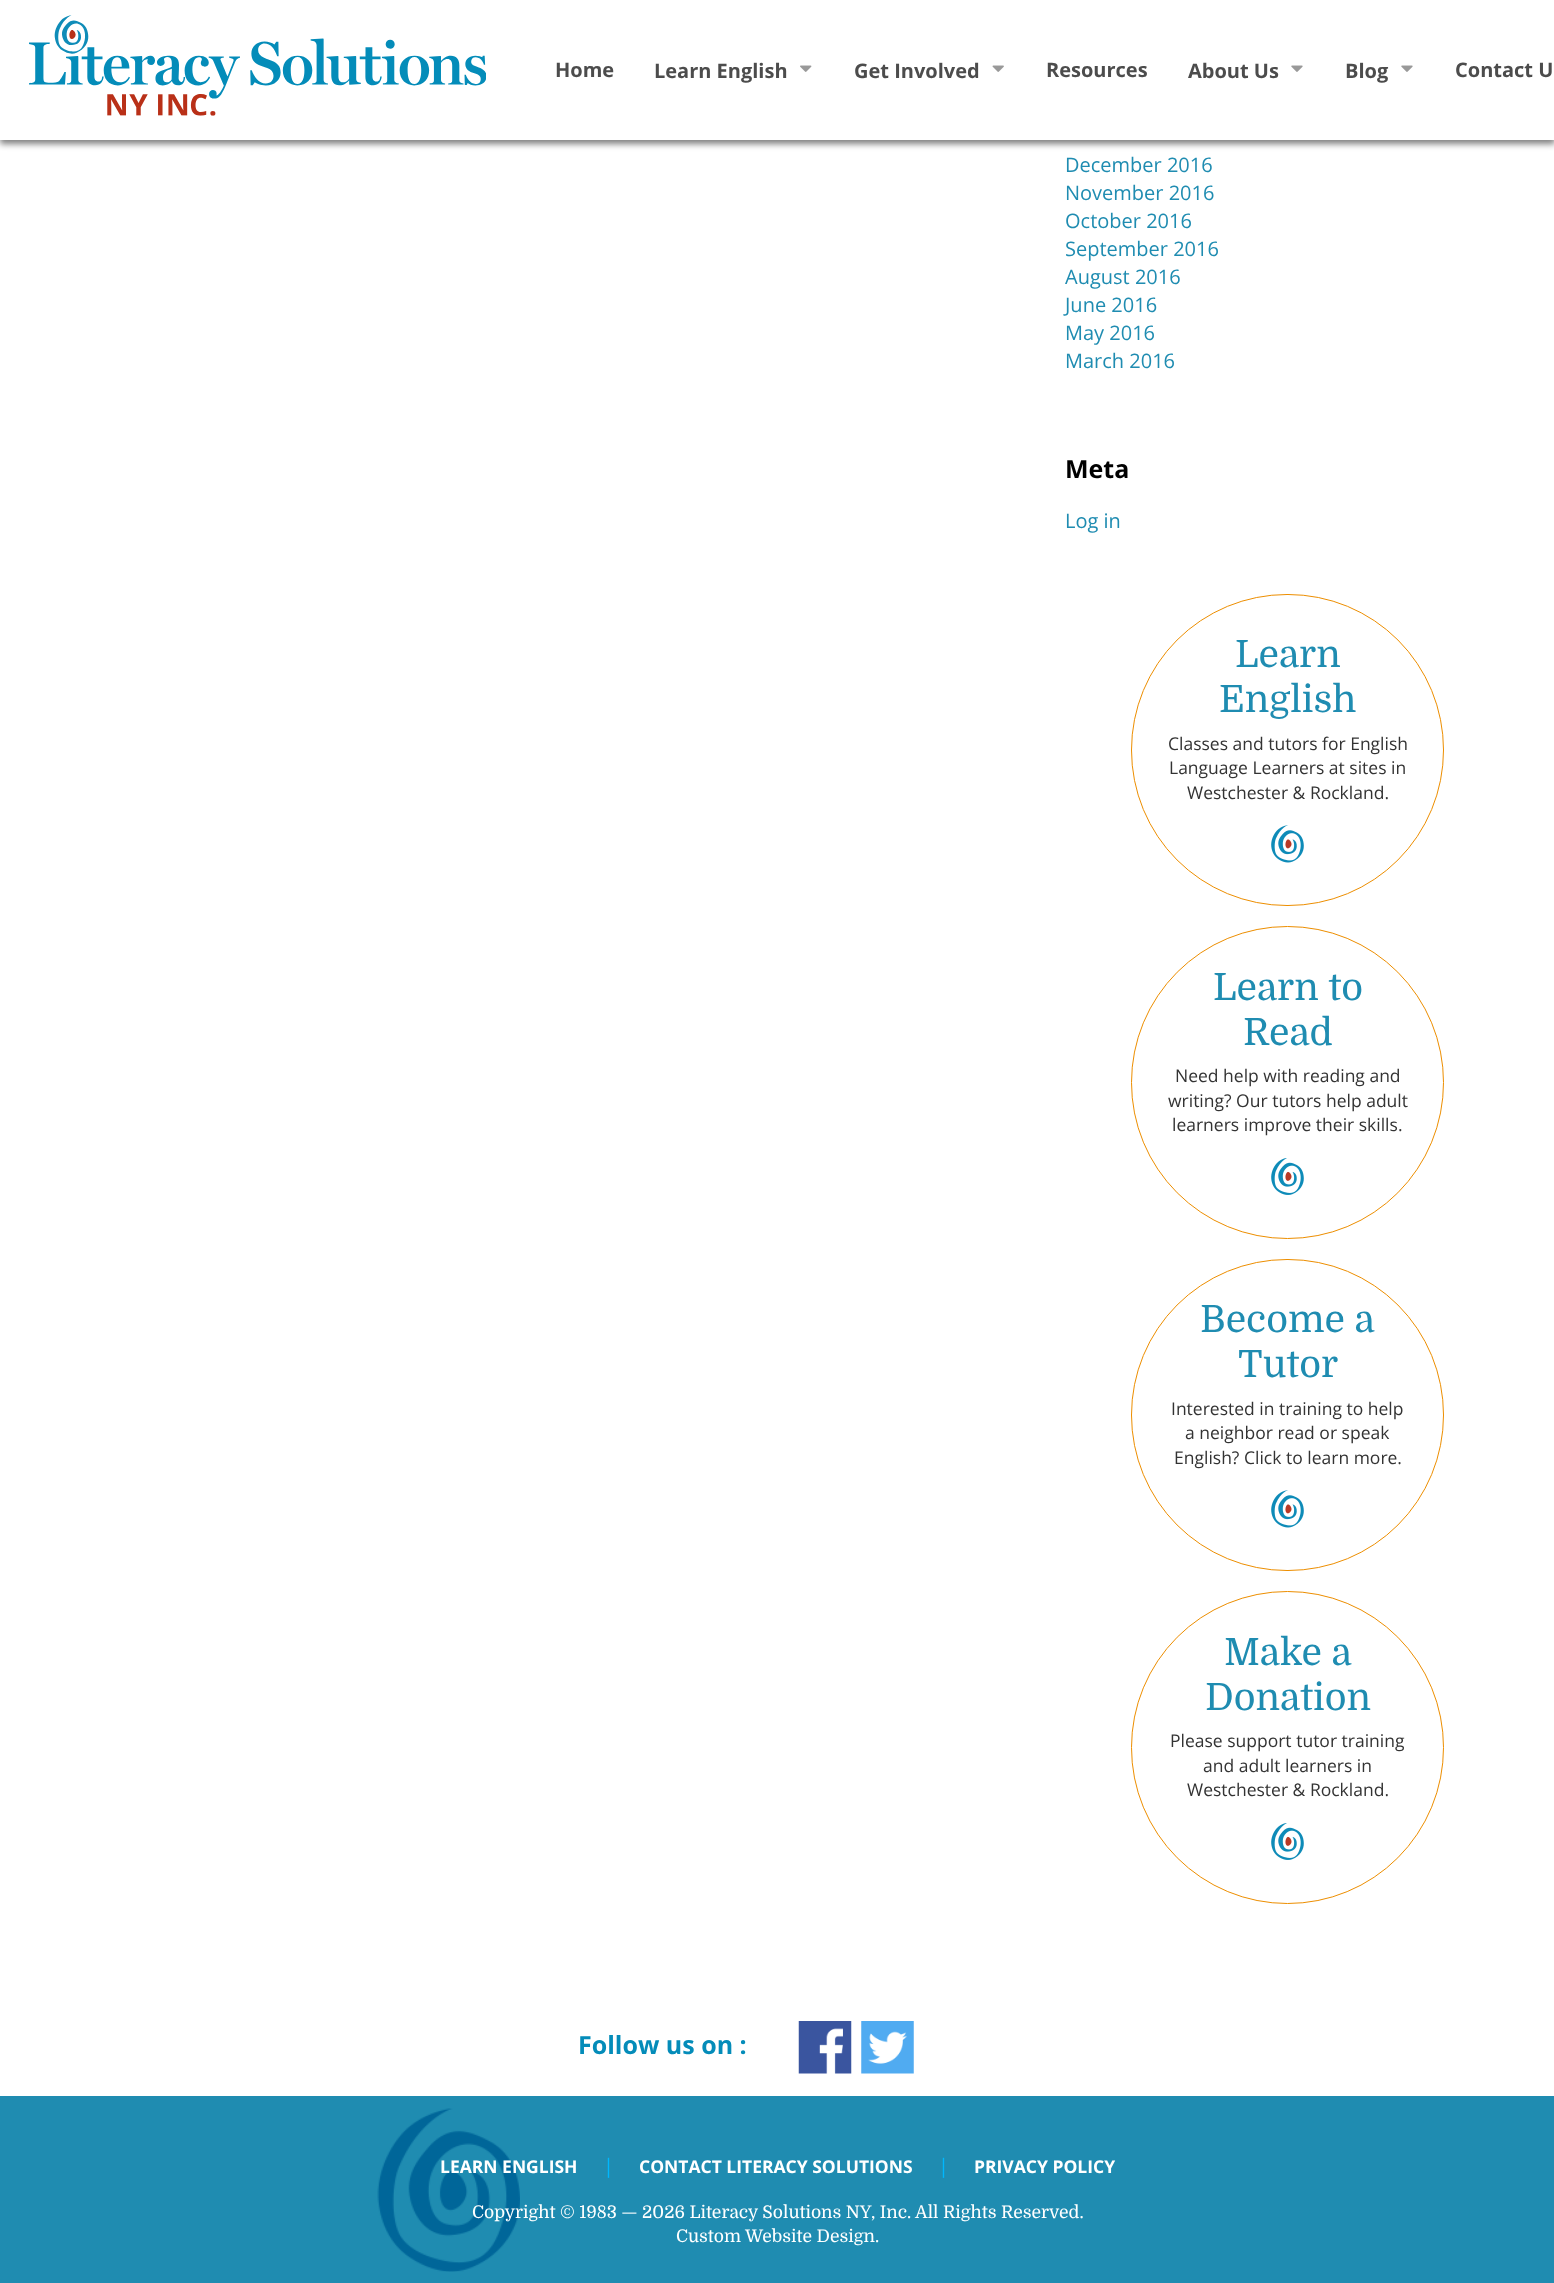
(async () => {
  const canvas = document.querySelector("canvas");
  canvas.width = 1554;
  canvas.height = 2283;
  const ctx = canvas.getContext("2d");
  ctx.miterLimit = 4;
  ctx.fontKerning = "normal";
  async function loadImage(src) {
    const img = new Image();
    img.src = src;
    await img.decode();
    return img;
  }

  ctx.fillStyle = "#ffffff";
  ctx.fillRect(0, 0, 1554, 2283);
  ctx.fillStyle = "rgba(0, 0, 0, 0.5)";
  ctx.filter = "blur(3px)";
  ctx.beginPath();
  ctx.rect(0, 4, 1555, 140);
  ctx.fill();
  ctx.filter = "none";
  ctx.fillStyle = "#ffffff";
  ctx.fillRect(0, 0, 1554, 140);
  ctx.drawImage(await loadImage("img/1.png"), 29, 15, 457, 101);
  ctx.drawImage(await loadImage("img/2.png"), 800, 65, 12, 7);
  ctx.drawImage(await loadImage("img/3.png"), 992, 65, 12, 7);
  ctx.drawImage(await loadImage("img/4.png"), 1291, 65, 12, 7);
  ctx.drawImage(await loadImage("img/4.png"), 1401, 65, 12, 7);
  ctx.beginPath();
  ctx.roundRect(1131.5, 594.5, 312, 311, 155.5);
  ctx.strokeStyle = "#ed8e00";
  ctx.stroke();
  ctx.drawImage(await loadImage("img/5.png"), 1271, 825, 33, 38);
  ctx.beginPath();
  ctx.arc(1287.5, 1082.5, 156, 0, Math.PI * 2);
  ctx.stroke();
  ctx.drawImage(await loadImage("img/6.png"), 1271, 1158, 33, 37);
  ctx.beginPath();
  ctx.roundRect(1131.5, 1259.5, 312, 311, 155.5);
  ctx.stroke();
  ctx.drawImage(await loadImage("img/5.png"), 1271, 1490, 33, 38);
  ctx.beginPath();
  ctx.arc(1287.5, 1747.5, 156, 0, Math.PI * 2);
  ctx.stroke();
  ctx.drawImage(await loadImage("img/6.png"), 1271, 1823, 33, 37);
  ctx.drawImage(await loadImage("img/7.png"), 798, 2021, 54, 53);
  ctx.drawImage(await loadImage("img/8.png"), 861, 2021, 53, 53);
  ctx.fillStyle = "#1f8cb1";
  ctx.fillRect(0, 2096, 1554, 187);
  ctx.drawImage(await loadImage("img/9.png"), 377, 2108, 143, 164);
  ctx.font = "bold 20px Open Sans";
  ctx.fillStyle = "#4c4c4c";
  for (const [text, x, y] of [
    ["Home", 555, 77],
    ["Learn English", 654, 78],
    ["Get Involved", 854, 78],
    ["Resources", 1046, 77],
    ["About Us", 1188, 78],
    ["Blog", 1345, 78],
    ["Contact U", 1455, 77],
  ]) {
    ctx.fillText(text, x, y);
  }
  ctx.font = "20px Open Sans";
  ctx.fillStyle = "#1f8cb1";
  for (const [text, x, y] of [
    ["December 2016", 1065, 172],
    ["November 2016", 1065, 200],
    ["October 2016", 1065, 228],
    ["September 2016", 1065, 256],
    ["August 2016", 1065, 284],
    ["June 2016", 1065, 312],
    ["May 2016", 1065, 340],
    ["March 2016", 1065, 368],
  ]) {
    ctx.fillText(text, x, y);
  }
  ctx.font = "bold 25px Open Sans";
  ctx.fillStyle = "#000000";
  ctx.fillText("Meta", 1065, 478);
  ctx.font = "20px Open Sans";
  ctx.fillStyle = "#1f8cb1";
  ctx.fillText("Log in", 1065, 528);
  ctx.font = "37.5px Domine";
  ctx.fillText("Learn", 1235, 667);
  ctx.fillText("English", 1219, 712);
  ctx.font = "17.5px Open Sans";
  ctx.fillStyle = "#333333";
  for (const [text, x, y] of [
    ["Classes and tutors for English", 1168, 750],
    ["Language Learners at sites in", 1169, 774],
    ["Westchester & Rockland.", 1187, 799],
  ]) {
    ctx.fillText(text, x, y);
  }
  ctx.font = "37.5px Domine";
  ctx.fillStyle = "#1f8cb1";
  ctx.fillText("Learn to", 1213, 1000);
  ctx.fillText("Read", 1243, 1045);
  ctx.font = "17.5px Open Sans";
  ctx.fillStyle = "#333333";
  for (const [text, x, y] of [
    ["Need help with reading and", 1175, 1082],
    ["writing? Our tutors help adult", 1168, 1107],
    ["learners improve their skills.", 1172, 1131],
  ]) {
    ctx.fillText(text, x, y);
  }
  ctx.font = "37.5px Domine";
  ctx.fillStyle = "#1f8cb1";
  ctx.fillText("Become a", 1200, 1332);
  ctx.fillText("Tutor", 1238, 1377);
  ctx.font = "17.5px Open Sans";
  ctx.fillStyle = "#333333";
  for (const [text, x, y] of [
    ["Interested in training to help", 1171, 1415],
    ["a neighbor read or speak", 1185, 1439],
    ["English? Click to learn more.", 1174, 1464],
  ]) {
    ctx.fillText(text, x, y);
  }
  ctx.font = "37.5px Domine";
  ctx.fillStyle = "#1f8cb1";
  ctx.fillText("Make a", 1224, 1665);
  ctx.fillText("Donation", 1205, 1710);
  ctx.font = "17.5px Open Sans";
  ctx.fillStyle = "#333333";
  for (const [text, x, y] of [
    ["Please support tutor training", 1170, 1747],
    ["and adult learners in", 1203, 1772],
    ["Westchester & Rockland.", 1187, 1796],
  ]) {
    ctx.fillText(text, x, y);
  }
  ctx.font = "bold 25px Open Sans";
  ctx.fillStyle = "#048cb9";
  ctx.fillText("Follow us on :", 578, 2054);
  ctx.font = "bold 17.5px Open Sans";
  ctx.fillStyle = "#ffffff";
  ctx.fillText("LEARN ENGLISH", 440, 2173);
  ctx.font = "20px Open Sans";
  ctx.fillStyle = "#00b7ff";
  ctx.fillText("|", 603, 2173);
  ctx.font = "bold 17.5px Open Sans";
  ctx.fillStyle = "#ffffff";
  ctx.fillText("CONTACT LITERACY SOLUTIONS", 639, 2173);
  ctx.font = "20px Open Sans";
  ctx.fillStyle = "#00b7ff";
  ctx.fillText("|", 938, 2173);
  ctx.font = "bold 17.5px Open Sans";
  ctx.fillStyle = "#ffffff";
  ctx.fillText("PRIVACY POLICY", 974, 2173);
  ctx.font = "17.5px Domine";
  ctx.fillText("Copyright © 1983 — 2026 Literacy Solutions NY, Inc. All Rights Reserved.", 472, 2218);
  ctx.fillText("Custom Website Design.", 676, 2242);
})();
